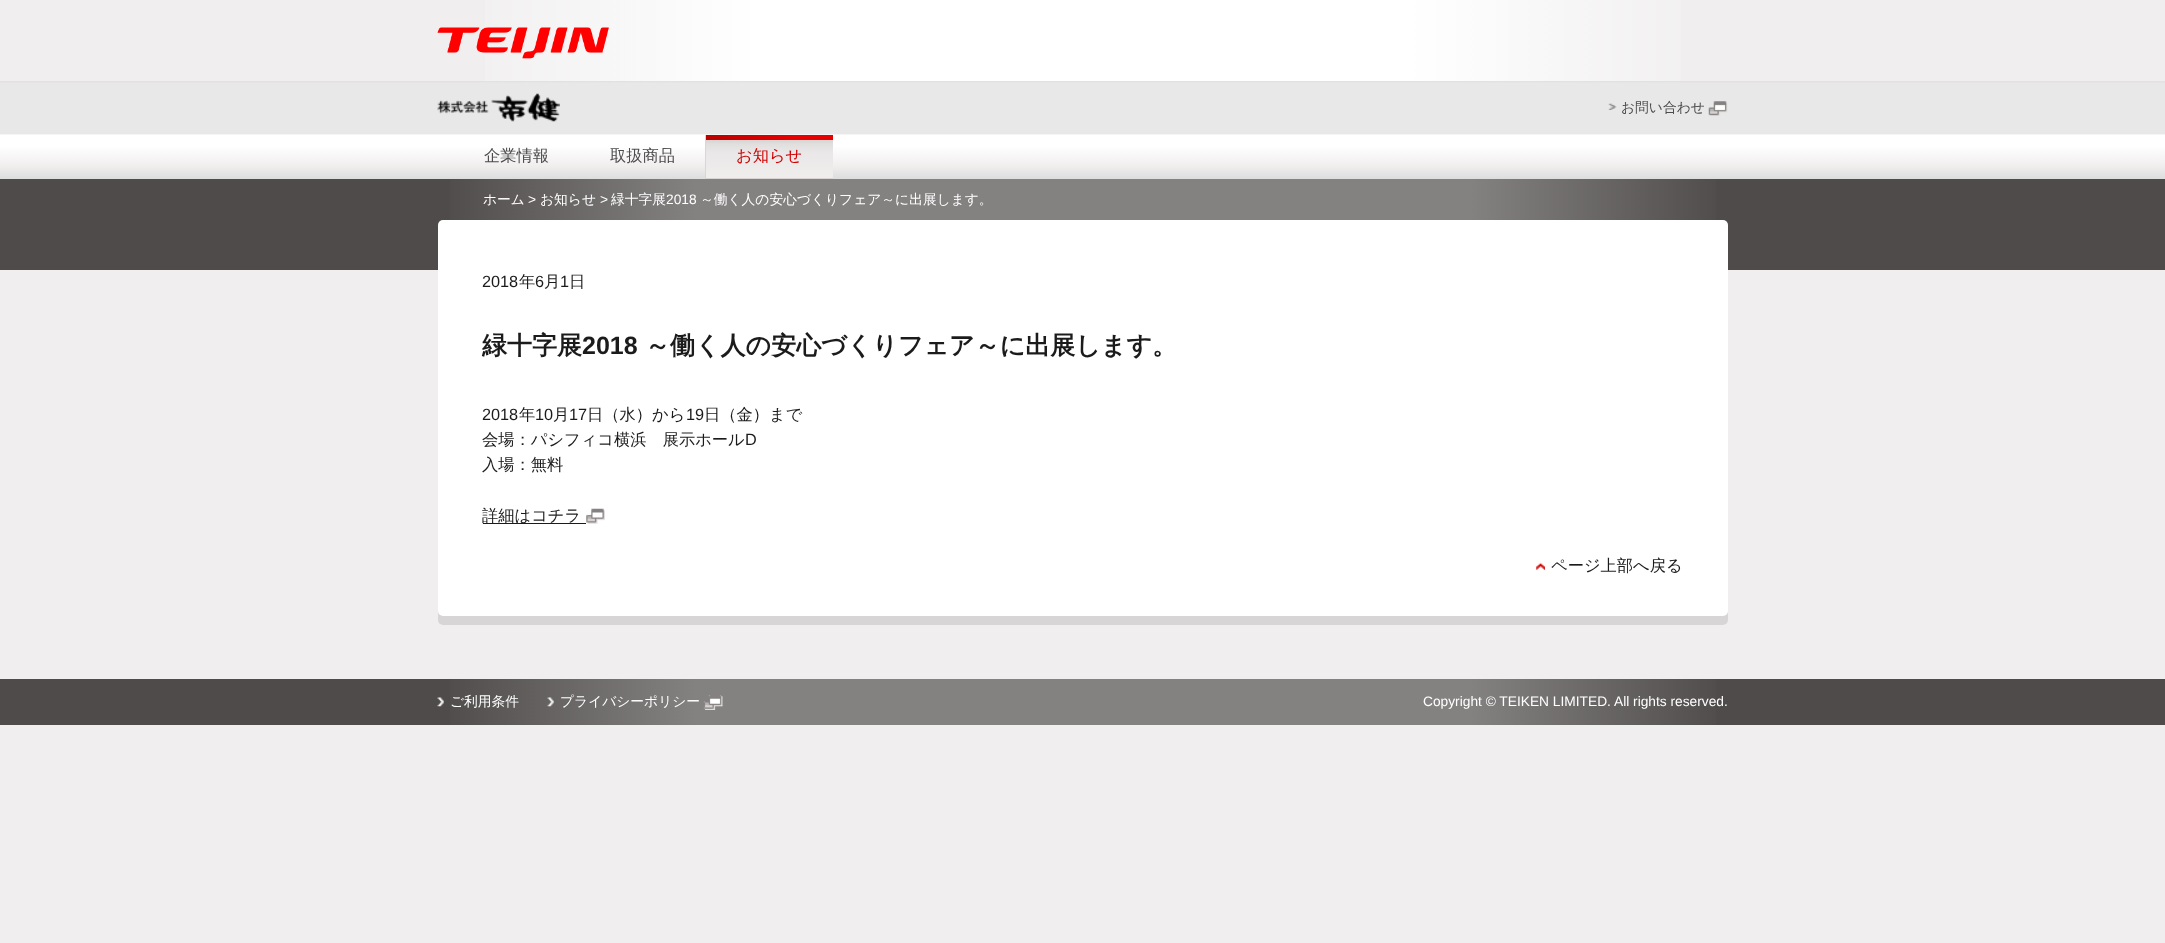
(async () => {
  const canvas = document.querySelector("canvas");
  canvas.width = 2165;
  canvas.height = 943;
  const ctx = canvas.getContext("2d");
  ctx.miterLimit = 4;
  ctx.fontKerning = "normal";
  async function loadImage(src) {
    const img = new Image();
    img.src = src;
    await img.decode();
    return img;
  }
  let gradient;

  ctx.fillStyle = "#f0eeee";
  ctx.fillRect(0, 0, 2165, 943);
  gradient = ctx.createLinearGradient(438, 41, 1728, 41);
  gradient.addColorStop(0, "#f0eeee");
  gradient.addColorStop(0.25, "#ffffff");
  gradient.addColorStop(0.75, "#ffffff");
  gradient.addColorStop(1, "#f0eeee");
  ctx.fillStyle = gradient;
  ctx.fillRect(485, 0, 1196, 81);
  ctx.drawImage(await loadImage("img/1.png"), 437, 27, 172, 32);
  gradient = ctx.createLinearGradient(1083, 81, 1083, 134);
  gradient.addColorStop(0, "#e1dfdf");
  gradient.addColorStop(0.04, "#e8e8e8");
  gradient.addColorStop(1, "#e8e8e8");
  ctx.fillStyle = gradient;
  ctx.fillRect(0, 81, 2165, 53);
  ctx.drawImage(await loadImage("img/2.png"), 437, 93, 123, 29);
  ctx.drawImage(await loadImage("img/3.png"), 1608, 103, 9, 7);
  ctx.drawImage(await loadImage("img/4.png"), 1708, 101, 20, 15);
  ctx.fillStyle = "#f5f5f5";
  ctx.fillRect(0, 134, 2165, 1);
  gradient = ctx.createLinearGradient(1083, 135, 1083, 179);
  gradient.addColorStop(0, "#ffffff");
  gradient.addColorStop(0.25, "#ffffff");
  gradient.addColorStop(0.7, "#f1eeee");
  gradient.addColorStop(1, "#dddddd");
  ctx.fillStyle = gradient;
  ctx.fillRect(0, 135, 2165, 44);
  gradient = ctx.createLinearGradient(769, 135, 769, 178);
  gradient.addColorStop(0, "#cbc6c6");
  gradient.addColorStop(0.01, "#cbc6c6");
  gradient.addColorStop(0.21, "#e1dede");
  gradient.addColorStop(0.4, "#e9e7e7");
  gradient.addColorStop(1, "#f0eded");
  ctx.fillStyle = gradient;
  ctx.fillRect(706, 140, 127, 38);
  ctx.fillStyle = "#d8d4d4";
  ctx.fillRect(705, 178, 128, 1);
  ctx.fillStyle = "#dad6d6";
  ctx.fillRect(705, 135, 1, 44);
  gradient = ctx.createLinearGradient(706, 138, 833, 138);
  gradient.addColorStop(0, "#b90000");
  gradient.addColorStop(0.7, "#e70000");
  gradient.addColorStop(1, "#e70000");
  ctx.fillStyle = gradient;
  ctx.fillRect(706, 135, 127, 5);
  ctx.fillStyle = "#4f4b4b";
  ctx.fillRect(0, 179, 2165, 91);
  gradient = ctx.createLinearGradient(438, 224, 1728, 224);
  gradient.addColorStop(0, "#4f4b4b");
  gradient.addColorStop(0.2, "#848181");
  gradient.addColorStop(0.8, "#848181");
  gradient.addColorStop(1, "#4f4b4b");
  ctx.fillStyle = gradient;
  ctx.fillRect(450, 179, 1266, 46);
  ctx.fillStyle = "rgba(0, 0, 0, 0.1)";
  ctx.filter = "blur(0.5px)";
  ctx.beginPath();
  ctx.roundRect(438, 229, 1290, 396, 5);
  ctx.fill();
  ctx.filter = "none";
  ctx.fillStyle = "#ffffff";
  ctx.beginPath();
  ctx.roundRect(438, 220, 1290, 396, 5);
  ctx.fill();
  ctx.fillStyle = "#1b1b1b";
  ctx.fillRect(483, 523, 103, 1);
  ctx.drawImage(await loadImage("img/5.png"), 586, 508, 19, 16);
  ctx.drawImage(await loadImage("img/6.png"), 1536, 562, 9, 8);
  ctx.fillStyle = "#4f4b4b";
  ctx.fillRect(0, 679, 2165, 46);
  gradient = ctx.createLinearGradient(438, 702, 1728, 702);
  gradient.addColorStop(0, "#4f4b4b");
  gradient.addColorStop(0.2, "#848181");
  gradient.addColorStop(0.8, "#848181");
  gradient.addColorStop(1, "#4f4b4b");
  ctx.fillStyle = gradient;
  ctx.fillRect(450, 679, 1266, 46);
  ctx.drawImage(await loadImage("img/7.png"), 437, 697, 7, 10);
  ctx.drawImage(await loadImage("img/8.png"), 547, 697, 7, 10);
  ctx.drawImage(await loadImage("img/9.png"), 703, 695, 20, 15);
  ctx.font = "500 13.75px WenQuanYi Zen Hei";
  ctx.fillStyle = "#4c4c4c";
  ctx.fillText("お問い合わせ", 1621, 112);
  ctx.font = "500 16.25px WenQuanYi Zen Hei";
  ctx.fillText("企業情報", 484, 161);
  ctx.fillText("取扱商品", 610, 161);
  ctx.fillStyle = "#d10000";
  ctx.fillText("お知らせ", 736, 161);
  ctx.font = "500 13.75px WenQuanYi Zen Hei";
  ctx.fillStyle = "#ffffff";
  ctx.fillText("ホーム", 483, 204);
  ctx.font = "13.75px Liberation Sans";
  ctx.fillText(">", 528, 204);
  ctx.font = "500 13.75px WenQuanYi Zen Hei";
  ctx.fillText("お知らせ", 540, 204);
  ctx.font = "13.75px Liberation Sans";
  ctx.fillText(">", 600, 204);
  ctx.font = "500 13.75px WenQuanYi Zen Hei";
  ctx.fillText("緑十字展", 611, 204);
  ctx.font = "13.75px Liberation Sans";
  ctx.fillText("2018", 666, 204);
  ctx.font = "500 13.75px WenQuanYi Zen Hei";
  ctx.fillText("～働く人の安心づくりフェア～に出展します。", 700, 204);
  ctx.font = "16.25px Liberation Sans";
  ctx.fillStyle = "#1b1b1b";
  ctx.fillText("2018", 482, 287);
  ctx.font = "500 16.25px WenQuanYi Zen Hei";
  ctx.fillText("年", 519, 287);
  ctx.font = "16.25px Liberation Sans";
  ctx.fillText("6", 535, 287);
  ctx.font = "500 16.25px WenQuanYi Zen Hei";
  ctx.fillText("月", 544, 287);
  ctx.font = "16.25px Liberation Sans";
  ctx.fillText("1", 560, 287);
  ctx.font = "500 16.25px WenQuanYi Zen Hei";
  ctx.fillText("日", 569, 287);
  ctx.font = "bold 25px WenQuanYi Zen Hei";
  ctx.fillText("緑十字展", 482, 354);
  ctx.font = "bold 25px Liberation Sans";
  ctx.fillText("2018", 582, 354);
  ctx.font = "bold 25px WenQuanYi Zen Hei";
  ctx.fillText("～働く人の安心づくりフェア～に出展します。", 645, 354);
  ctx.font = "16.25px Liberation Sans";
  ctx.fillText("2018", 482, 420);
  ctx.font = "500 16.25px WenQuanYi Zen Hei";
  ctx.fillText("年", 519, 420);
  ctx.font = "16.25px Liberation Sans";
  ctx.fillText("10", 535, 420);
  ctx.font = "500 16.25px WenQuanYi Zen Hei";
  ctx.fillText("月", 553, 420);
  ctx.font = "16.25px Liberation Sans";
  ctx.fillText("17", 569, 420);
  ctx.font = "500 16.25px WenQuanYi Zen Hei";
  ctx.fillText("日（水）から", 587, 420);
  ctx.font = "16.25px Liberation Sans";
  ctx.fillText("19", 686, 420);
  ctx.font = "500 16.25px WenQuanYi Zen Hei";
  ctx.fillText("日（金）まで", 704, 420);
  ctx.fillText("会場：パシフィコ横浜　展示ホール", 482, 445);
  ctx.font = "16.25px Liberation Sans";
  ctx.fillText("D", 745, 445);
  ctx.font = "500 16.25px WenQuanYi Zen Hei";
  for (const [text, x, y] of [
    ["入場：無料", 482, 470],
    ["詳細はコチラ", 482, 521],
    ["ページ上部へ戻る", 1551, 571],
  ]) {
    ctx.fillText(text, x, y);
  }
  ctx.font = "500 13.75px WenQuanYi Zen Hei";
  ctx.fillStyle = "#ffffff";
  ctx.fillText("ご利用条件", 450, 706);
  ctx.fillText("プライバシーポリシー", 560, 706);
  ctx.font = "13.75px Liberation Sans";
  ctx.fillText("Copyright © TEIKEN LIMITED. All rights reserved.", 1423, 706);
})();
